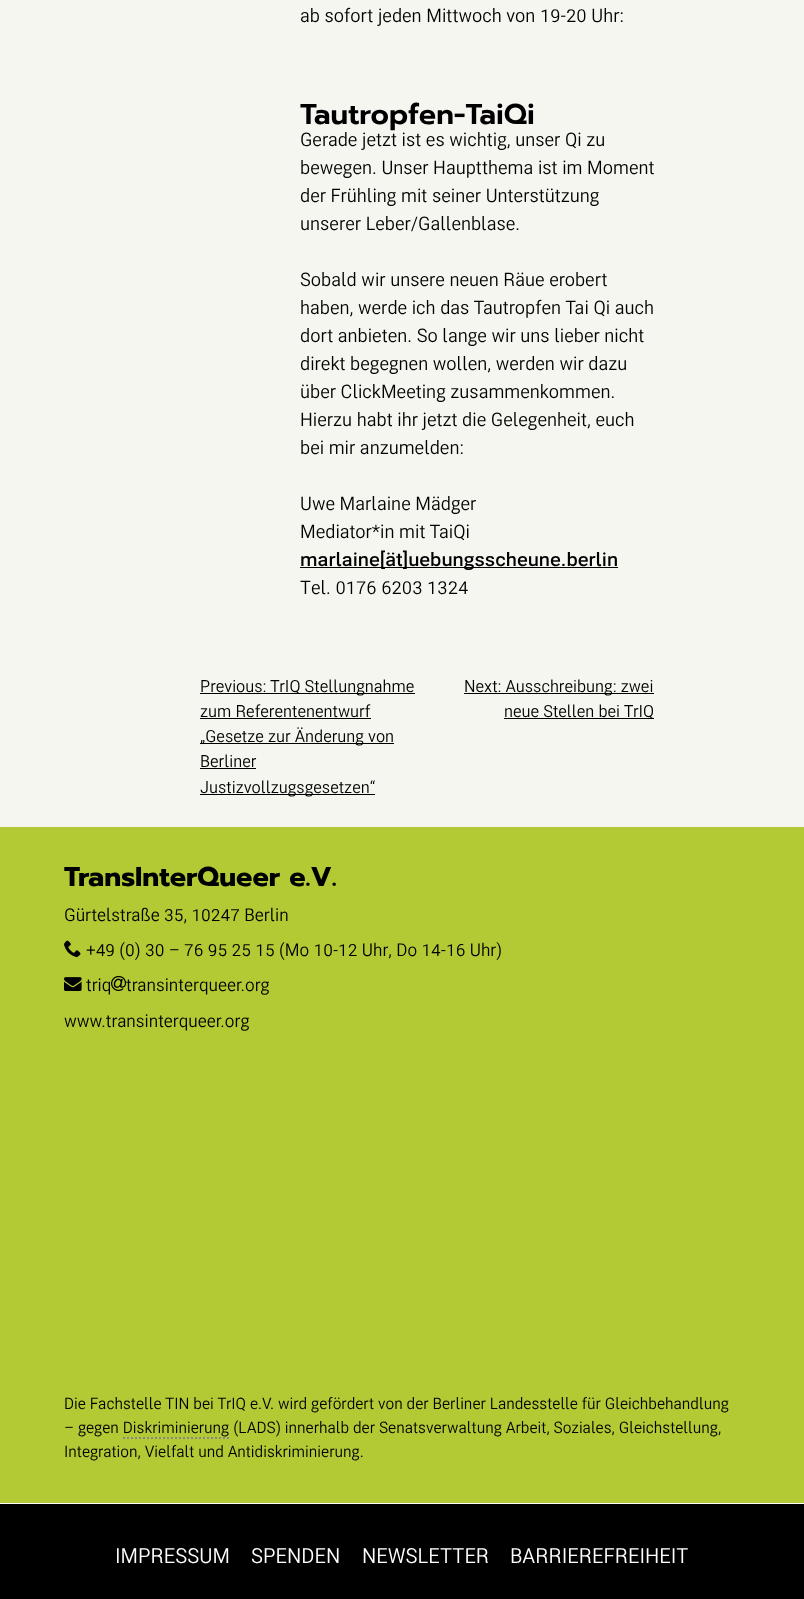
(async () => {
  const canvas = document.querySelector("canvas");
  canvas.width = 804;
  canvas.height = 1599;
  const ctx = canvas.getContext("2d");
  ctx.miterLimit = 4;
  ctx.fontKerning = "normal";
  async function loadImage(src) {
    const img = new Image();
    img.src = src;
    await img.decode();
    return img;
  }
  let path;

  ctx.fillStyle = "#f5f6f0";
  ctx.fillRect(0, 0, 804, 1599);
  for (const [x, y, w, h, color] of [
    [300, 567, 318, 1, "#000000"],
    [200, 693, 215, 1, "#000000"],
    [200, 718, 171, 1, "#000000"],
    [200, 743, 194, 1, "#000000"],
    [200, 768, 56, 1, "#000000"],
    [200, 794, 175, 1, "#000000"],
    [464, 693, 190, 1, "#000000"],
    [504, 718, 150, 1, "#000000"],
    [0, 827, 804, 676, "#b3ca34"],
  ]) {
    ctx.fillStyle = color;
    ctx.fillRect(x, y, w, h);
  }
  ctx.drawImage(await loadImage("img/1.png"), 64, 940, 17, 18);
  ctx.drawImage(await loadImage("img/2.png"), 64, 977, 18, 14);
  ctx.drawImage(await loadImage("img/3.png"), 111, 975, 16, 16);
  path = new Path2D("M123 1438H229");
  ctx.strokeStyle = "#888888";
  ctx.lineWidth = 2;
  ctx.setLineDash([2, 2]);
  ctx.stroke(path);
  ctx.fillStyle = "#000000";
  ctx.fillRect(0, 1504, 804, 95);
  ctx.fillStyle = "#ffffff";
  ctx.fillRect(0, 1503, 804, 1);
  ctx.font = "18.7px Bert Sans";
  ctx.fillStyle = "#000000";
  ctx.fillText("ab sofort jeden Mittwoch von 19-20 Uhr:", 300, 22);
  ctx.font = "600 28.75px Prompt";
  ctx.fillText("Tautropfen-TaiQi", 300, 124);
  ctx.font = "18.7px Bert Sans";
  for (const [text, x, y] of [
    ["Gerade jetzt ist es wichtig, unser Qi zu", 300, 146],
    ["bewegen. Unser Hauptthema ist im Moment", 300, 174],
    ["der Frühling mit seiner Unterstützung", 300, 202],
    ["unserer Leber/Gallenblase.", 300, 230],
    ["Sobald wir unsere neuen Räue erobert", 300, 286],
    ["haben, werde ich das Tautropfen Tai Qi auch", 300, 314],
    ["dort anbieten. So lange wir uns lieber nicht", 300, 342],
    ["direkt begegnen wollen, werden wir dazu", 300, 370],
    ["über ClickMeeting zusammenkommen.", 300, 398],
    ["Hierzu habt ihr jetzt die Gelegenheit, euch", 300, 426],
    ["bei mir anzumelden:", 300, 454],
    ["Uwe Marlaine Mädger", 300, 510],
    ["Mediator*in mit TaiQi", 300, 538],
  ]) {
    ctx.fillText(text, x, y);
  }
  ctx.font = "600 18.7px Bert Sans";
  ctx.fillText("marlaine[ät]uebungsscheune.berlin", 300, 566);
  ctx.font = "18.7px Bert Sans";
  ctx.fillText("Tel. 0176 6203 1324", 300, 594);
  ctx.font = "16.75px Bert Sans";
  for (const [text, x, y] of [
    ["Previous:", 200, 692],
    ["TrIQ Stellungnahme", 270, 692],
    ["zum Referentenentwurf", 200, 717],
    ["„Gesetze zur Änderung von", 200, 742],
    ["Berliner", 200, 767],
    ["Justizvollzugsgesetzen“", 200, 793],
    ["Next: Ausschreibung: zwei", 464, 692],
    ["neue Stellen bei TrIQ", 504, 717],
  ]) {
    ctx.fillText(text, x, y);
  }
  ctx.font = "bold 27.25px Prompt";
  ctx.fillText("TransInterQueer e.V.", 64, 886);
  ctx.font = "17.6px Bert Sans";
  for (const [text, x, y] of [
    ["Gürtelstraße 35, 10247 Berlin", 64, 921],
    ["+49 (0) 30 – 76 95 25 15 (Mo 10-12 Uhr, Do 14-16 Uhr)", 86, 956],
    ["triq", 86, 991],
    ["transinterqueer.org", 126, 991],
    ["www.transinterqueer.org", 64, 1027],
  ]) {
    ctx.fillText(text, x, y);
  }
  ctx.font = "15.85px Bert Sans";
  for (const [text, x, y] of [
    ["Die Fachstelle TIN bei TrIQ e.V. wird gefördert von der Berliner Landesstelle für Gleichbehandlung", 64, 1409],
    ["– gegen Diskriminierung (LADS) innerhalb der Senatsverwaltung Arbeit, Soziales, Gleichstellung,", 64, 1433],
    ["Integration, Vielfalt und Antidiskriminierung.", 64, 1457],
  ]) {
    ctx.fillText(text, x, y);
  }
  ctx.font = "20.75px Bert Sans";
  ctx.fillStyle = "#ffffff";
  for (const [text, x, y] of [
    ["IMPRESSUM", 115, 1563],
    ["SPENDEN", 251, 1563],
    ["NEWSLETTER", 362, 1563],
    ["BARRIEREFREIHEIT", 510, 1563],
  ]) {
    ctx.fillText(text, x, y);
  }
})();
